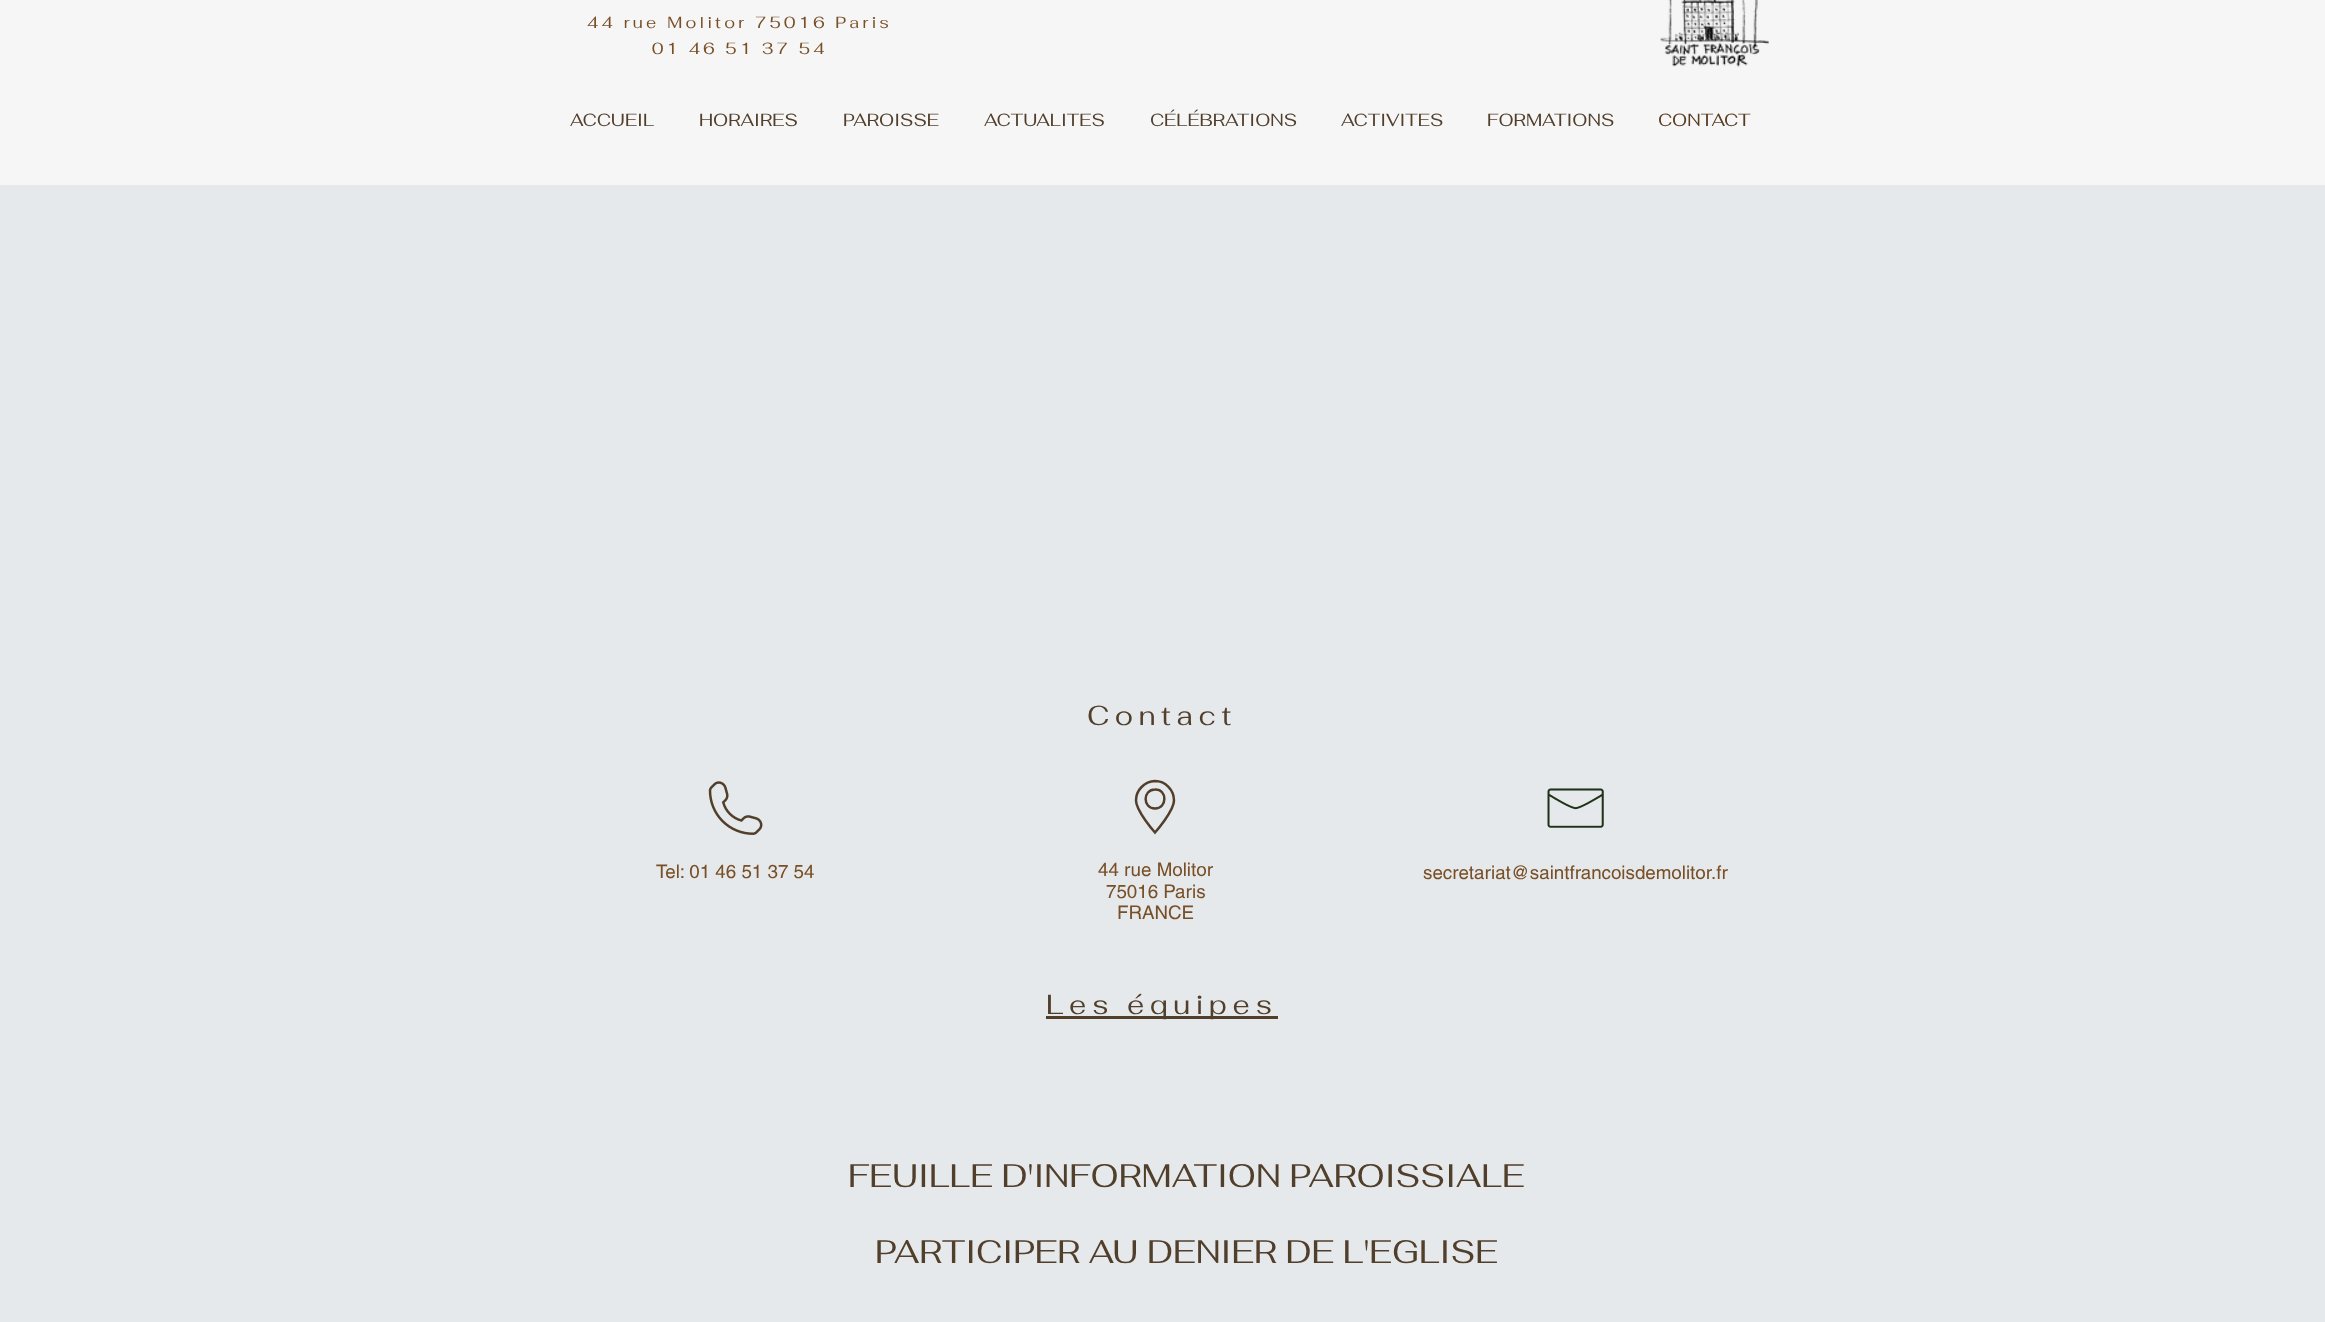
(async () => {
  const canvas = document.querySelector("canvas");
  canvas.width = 2325;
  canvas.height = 1322;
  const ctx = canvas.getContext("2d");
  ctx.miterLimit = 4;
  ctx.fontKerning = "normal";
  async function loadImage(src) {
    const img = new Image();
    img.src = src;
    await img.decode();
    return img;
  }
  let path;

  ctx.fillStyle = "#e6e9eb";
  ctx.fillRect(0, 0, 2325, 1322);
  ctx.fillStyle = "#f6f6f7";
  ctx.fillRect(0, 0, 2325, 185);
  ctx.drawImage(await loadImage("img/1.png"), 1660, 0, 109, 67);
  ctx.drawImage(await loadImage("img/2.png"), 708, 781, 55, 54);
  path = new Path2D("M1155 781C1144.5 781.5 1136 790 1136 800.5C1136 811 1155 832.5 1155 832.5C1155 832.5 1174 811 1174 800.5C1174 790 1165.5 781 1155 781ZM1155 808.5C1142.5 808.5 1142.5 789.5 1155 789.5C1167.5 789 1167.5 808.5 1155 808.5Z");
  ctx.strokeStyle = "#513f2c";
  ctx.lineWidth = 2.5;
  ctx.stroke(path);
  ctx.drawImage(await loadImage("img/3.png"), 1547, 788, 57, 40);
  ctx.fillStyle = "#513f2c";
  ctx.fillRect(1046, 1016, 232, 3);
  ctx.letterSpacing = "3.25px";
  ctx.font = "16.25px Fahkwang";
  ctx.fillStyle = "#784f26";
  ctx.fillText("44 rue Molitor 75016 Paris", 587, 28);
  ctx.fillText("01 46 51 37 54", 652, 54);
  ctx.letterSpacing = "0px";
  ctx.font = "17.5px Fahkwang";
  ctx.fillStyle = "#513f2c";
  for (const [text, x, y] of [
    ["ACCUEIL", 570, 126],
    ["HORAIRES", 699, 126],
    ["PAROISSE", 843, 126],
    ["ACTUALITES", 984, 126],
    ["CÉLÉBRATIONS", 1150, 126],
    ["ACTIVITES", 1341, 126],
    ["FORMATIONS", 1487, 126],
  ]) {
    ctx.fillText(text, x, y);
  }
  ctx.fillStyle = "#593d20";
  ctx.fillText("CONTACT", 1658, 126);
  ctx.letterSpacing = "5.5px";
  ctx.font = "27.5px Fahkwang";
  ctx.fillStyle = "#513f2c";
  ctx.fillText("Contact", 1087, 725);
  ctx.letterSpacing = "0px";
  ctx.font = "18.75px helvetica";
  ctx.fillStyle = "#784f26";
  for (const [text, x, y] of [
    ["Tel: 01 46 51 37 54", 656, 878],
    ["44 rue Molitor", 1098, 876],
    ["75016 Paris", 1106, 898],
    ["FRANCE", 1117, 919],
    ["secretariat@saintfrancoisdemolitor.fr", 1423, 879],
  ]) {
    ctx.fillText(text, x, y);
  }
  ctx.letterSpacing = "5.5px";
  ctx.font = "27.5px Fahkwang";
  ctx.fillStyle = "#513f2c";
  ctx.fillText("Les équipes", 1046, 1014);
  ctx.letterSpacing = "0px";
  ctx.font = "32.5px Fahkwang";
  ctx.fillText("FEUILLE D'INFORMATION PAROISSIALE", 848, 1187);
  ctx.fillText("PARTICIPER AU DENIER DE L'EGLISE", 875, 1263);
})();
